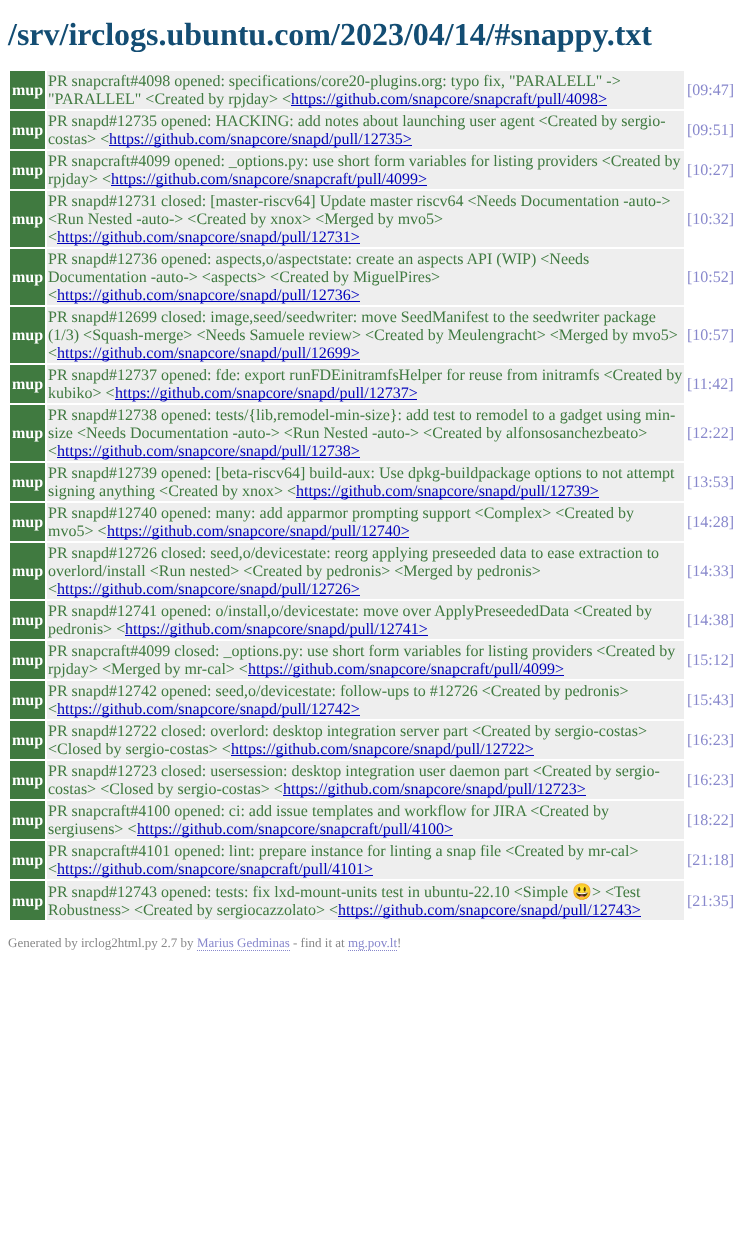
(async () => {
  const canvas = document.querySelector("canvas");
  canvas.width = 745;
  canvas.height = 1237;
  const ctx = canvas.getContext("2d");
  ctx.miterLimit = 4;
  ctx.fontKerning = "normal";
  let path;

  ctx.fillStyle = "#ffffff";
  ctx.fillRect(0, 0, 745, 1237);
  for (const [x, y, w, h, color] of [
    [10, 71, 35, 38, "#407a40"],
    [47, 71, 637, 38, "#eeeeee"],
    [291, 105, 316, 1, "#0000bb"],
    [10, 111, 35, 38, "#407a40"],
    [47, 111, 637, 38, "#eeeeee"],
    [109, 145, 303, 1, "#0000bb"],
    [10, 151, 35, 38, "#407a40"],
    [47, 151, 637, 38, "#eeeeee"],
    [111, 185, 316, 1, "#0000bb"],
    [10, 191, 35, 56, "#407a40"],
    [47, 191, 637, 56, "#eeeeee"],
    [57, 243, 303, 1, "#0000bb"],
    [10, 249, 35, 56, "#407a40"],
    [47, 249, 637, 56, "#eeeeee"],
    [57, 301, 303, 1, "#0000bb"],
    [10, 307, 35, 56, "#407a40"],
    [47, 307, 637, 56, "#eeeeee"],
    [57, 359, 303, 1, "#0000bb"],
    [10, 365, 35, 38, "#407a40"],
    [47, 365, 637, 38, "#eeeeee"],
    [115, 399, 302, 1, "#0000bb"],
    [10, 405, 35, 56, "#407a40"],
    [47, 405, 637, 56, "#eeeeee"],
    [57, 457, 303, 1, "#0000bb"],
    [10, 463, 35, 38, "#407a40"],
    [47, 463, 637, 38, "#eeeeee"],
    [296, 497, 303, 1, "#0000bb"],
    [10, 503, 35, 38, "#407a40"],
    [47, 503, 637, 38, "#eeeeee"],
    [107, 537, 302, 1, "#0000bb"],
    [10, 543, 35, 56, "#407a40"],
    [47, 543, 637, 56, "#eeeeee"],
    [57, 595, 303, 1, "#0000bb"],
    [10, 601, 35, 38, "#407a40"],
    [47, 601, 637, 38, "#eeeeee"],
    [125, 635, 303, 1, "#0000bb"],
    [10, 641, 35, 38, "#407a40"],
    [47, 641, 637, 38, "#eeeeee"],
    [248, 675, 316, 1, "#0000bb"],
    [10, 681, 35, 38, "#407a40"],
    [47, 681, 637, 38, "#eeeeee"],
    [57, 715, 303, 1, "#0000bb"],
    [10, 721, 35, 38, "#407a40"],
    [47, 721, 637, 38, "#eeeeee"],
    [231, 755, 303, 1, "#0000bb"],
    [10, 761, 35, 38, "#407a40"],
    [47, 761, 637, 38, "#eeeeee"],
    [283, 795, 303, 1, "#0000bb"],
    [10, 801, 35, 38, "#407a40"],
    [47, 801, 637, 38, "#eeeeee"],
    [137, 835, 316, 1, "#0000bb"],
    [10, 841, 35, 38, "#407a40"],
    [47, 841, 637, 38, "#eeeeee"],
    [57, 875, 316, 1, "#0000bb"],
    [10, 881, 35, 39, "#407a40"],
    [47, 881, 637, 39, "#eeeeee"],
    [338, 916, 303, 1, "#0000bb"],
  ]) {
    ctx.fillStyle = color;
    ctx.fillRect(x, y, w, h);
  }
  path = new Path2D("M197 950.5H290");
  ctx.strokeStyle = "#8888cc";
  ctx.setLineDash([1, 1]);
  ctx.stroke(path);
  path = new Path2D("M348 950.5H397");
  ctx.stroke(path);
  ctx.font = "bold 32px Liberation Serif";
  ctx.fillStyle = "#134d73";
  ctx.fillText("/srv/irclogs.ubuntu.com/2023/04/14/#snappy.txt", 8, 45);
  ctx.font = "bold 16px Liberation Serif";
  ctx.fillStyle = "#ffffff";
  ctx.fillText("mup", 12, 95);
  ctx.font = "16px Liberation Serif";
  ctx.fillStyle = "#407a40";
  ctx.fillText("PR snapcraft#4098 opened: specifications/core20-plugins.org: typo fix, \"PARALELL\" ->", 48, 86);
  ctx.fillText("\"PARALLEL\" <Created by rpjday> <", 48, 104);
  ctx.fillStyle = "#0000bb";
  ctx.fillText("https://github.com/snapcore/snapcraft/pull/4098>", 291, 104);
  ctx.fillStyle = "#8888cc";
  ctx.fillText("[09:47]", 687, 95);
  ctx.font = "bold 16px Liberation Serif";
  ctx.fillStyle = "#ffffff";
  ctx.fillText("mup", 12, 135);
  ctx.font = "16px Liberation Serif";
  ctx.fillStyle = "#407a40";
  ctx.fillText("PR snapd#12735 opened: HACKING: add notes about launching user agent <Created by sergio-", 48, 126);
  ctx.fillText("costas> <", 48, 144);
  ctx.fillStyle = "#0000bb";
  ctx.fillText("https://github.com/snapcore/snapd/pull/12735>", 109, 144);
  ctx.fillStyle = "#8888cc";
  ctx.fillText("[09:51]", 687, 135);
  ctx.font = "bold 16px Liberation Serif";
  ctx.fillStyle = "#ffffff";
  ctx.fillText("mup", 12, 175);
  ctx.font = "16px Liberation Serif";
  ctx.fillStyle = "#407a40";
  ctx.fillText("PR snapcraft#4099 opened: _options.py: use short form variables for listing providers <Created by", 48, 166);
  ctx.fillText("rpjday> <", 48, 184);
  ctx.fillStyle = "#0000bb";
  ctx.fillText("https://github.com/snapcore/snapcraft/pull/4099>", 111, 184);
  ctx.fillStyle = "#8888cc";
  ctx.fillText("[10:27]", 687, 175);
  ctx.font = "bold 16px Liberation Serif";
  ctx.fillStyle = "#ffffff";
  ctx.fillText("mup", 12, 224);
  ctx.font = "16px Liberation Serif";
  ctx.fillStyle = "#407a40";
  for (const [text, x, y] of [
    ["PR snapd#12731 closed: [master-riscv64] Update master riscv64 <Needs Documentation -auto->", 48, 206],
    ["<Run Nested -auto-> <Created by xnox> <Merged by mvo5>", 48, 224],
    ["<", 48, 242],
  ]) {
    ctx.fillText(text, x, y);
  }
  ctx.fillStyle = "#0000bb";
  ctx.fillText("https://github.com/snapcore/snapd/pull/12731>", 57, 242);
  ctx.fillStyle = "#8888cc";
  ctx.fillText("[10:32]", 687, 224);
  ctx.font = "bold 16px Liberation Serif";
  ctx.fillStyle = "#ffffff";
  ctx.fillText("mup", 12, 282);
  ctx.font = "16px Liberation Serif";
  ctx.fillStyle = "#407a40";
  for (const [text, x, y] of [
    ["PR snapd#12736 opened: aspects,o/aspectstate: create an aspects API (WIP) <Needs", 48, 264],
    ["Documentation -auto-> <aspects> <Created by MiguelPires>", 48, 282],
    ["<", 48, 300],
  ]) {
    ctx.fillText(text, x, y);
  }
  ctx.fillStyle = "#0000bb";
  ctx.fillText("https://github.com/snapcore/snapd/pull/12736>", 57, 300);
  ctx.fillStyle = "#8888cc";
  ctx.fillText("[10:52]", 687, 282);
  ctx.font = "bold 16px Liberation Serif";
  ctx.fillStyle = "#ffffff";
  ctx.fillText("mup", 12, 340);
  ctx.font = "16px Liberation Serif";
  ctx.fillStyle = "#407a40";
  for (const [text, x, y] of [
    ["PR snapd#12699 closed: image,seed/seedwriter: move SeedManifest to the seedwriter package", 48, 322],
    ["(1/3) <Squash-merge> <Needs Samuele review> <Created by Meulengracht> <Merged by mvo5>", 48, 340],
    ["<", 48, 358],
  ]) {
    ctx.fillText(text, x, y);
  }
  ctx.fillStyle = "#0000bb";
  ctx.fillText("https://github.com/snapcore/snapd/pull/12699>", 57, 358);
  ctx.fillStyle = "#8888cc";
  ctx.fillText("[10:57]", 687, 340);
  ctx.font = "bold 16px Liberation Serif";
  ctx.fillStyle = "#ffffff";
  ctx.fillText("mup", 12, 389);
  ctx.font = "16px Liberation Serif";
  ctx.fillStyle = "#407a40";
  ctx.fillText("PR snapd#12737 opened: fde: export runFDEinitramfsHelper for reuse from initramfs <Created by", 48, 380);
  ctx.fillText("kubiko> <", 48, 398);
  ctx.fillStyle = "#0000bb";
  ctx.fillText("https://github.com/snapcore/snapd/pull/12737>", 115, 398);
  ctx.fillStyle = "#8888cc";
  ctx.fillText("[11:42]", 687, 389);
  ctx.font = "bold 16px Liberation Serif";
  ctx.fillStyle = "#ffffff";
  ctx.fillText("mup", 12, 438);
  ctx.font = "16px Liberation Serif";
  ctx.fillStyle = "#407a40";
  for (const [text, x, y] of [
    ["PR snapd#12738 opened: tests/{lib,remodel-min-size}: add test to remodel to a gadget using min-", 48, 420],
    ["size <Needs Documentation -auto-> <Run Nested -auto-> <Created by alfonsosanchezbeato>", 48, 438],
    ["<", 48, 456],
  ]) {
    ctx.fillText(text, x, y);
  }
  ctx.fillStyle = "#0000bb";
  ctx.fillText("https://github.com/snapcore/snapd/pull/12738>", 57, 456);
  ctx.fillStyle = "#8888cc";
  ctx.fillText("[12:22]", 687, 438);
  ctx.font = "bold 16px Liberation Serif";
  ctx.fillStyle = "#ffffff";
  ctx.fillText("mup", 12, 487);
  ctx.font = "16px Liberation Serif";
  ctx.fillStyle = "#407a40";
  ctx.fillText("PR snapd#12739 opened: [beta-riscv64] build-aux: Use dpkg-buildpackage options to not attempt", 48, 478);
  ctx.fillText("signing anything <Created by xnox> <", 48, 496);
  ctx.fillStyle = "#0000bb";
  ctx.fillText("https://github.com/snapcore/snapd/pull/12739>", 296, 496);
  ctx.fillStyle = "#8888cc";
  ctx.fillText("[13:53]", 687, 487);
  ctx.font = "bold 16px Liberation Serif";
  ctx.fillStyle = "#ffffff";
  ctx.fillText("mup", 12, 527);
  ctx.font = "16px Liberation Serif";
  ctx.fillStyle = "#407a40";
  ctx.fillText("PR snapd#12740 opened: many: add apparmor prompting support <Complex> <Created by", 48, 518);
  ctx.fillText("mvo5> <", 48, 536);
  ctx.fillStyle = "#0000bb";
  ctx.fillText("https://github.com/snapcore/snapd/pull/12740>", 107, 536);
  ctx.fillStyle = "#8888cc";
  ctx.fillText("[14:28]", 687, 527);
  ctx.font = "bold 16px Liberation Serif";
  ctx.fillStyle = "#ffffff";
  ctx.fillText("mup", 12, 576);
  ctx.font = "16px Liberation Serif";
  ctx.fillStyle = "#407a40";
  for (const [text, x, y] of [
    ["PR snapd#12726 closed: seed,o/devicestate: reorg applying preseeded data to ease extraction to", 48, 558],
    ["overlord/install <Run nested> <Created by pedronis> <Merged by pedronis>", 48, 576],
    ["<", 48, 594],
  ]) {
    ctx.fillText(text, x, y);
  }
  ctx.fillStyle = "#0000bb";
  ctx.fillText("https://github.com/snapcore/snapd/pull/12726>", 57, 594);
  ctx.fillStyle = "#8888cc";
  ctx.fillText("[14:33]", 687, 576);
  ctx.font = "bold 16px Liberation Serif";
  ctx.fillStyle = "#ffffff";
  ctx.fillText("mup", 12, 625);
  ctx.font = "16px Liberation Serif";
  ctx.fillStyle = "#407a40";
  ctx.fillText("PR snapd#12741 opened: o/install,o/devicestate: move over ApplyPreseededData <Created by", 48, 616);
  ctx.fillText("pedronis> <", 48, 634);
  ctx.fillStyle = "#0000bb";
  ctx.fillText("https://github.com/snapcore/snapd/pull/12741>", 125, 634);
  ctx.fillStyle = "#8888cc";
  ctx.fillText("[14:38]", 687, 625);
  ctx.font = "bold 16px Liberation Serif";
  ctx.fillStyle = "#ffffff";
  ctx.fillText("mup", 12, 665);
  ctx.font = "16px Liberation Serif";
  ctx.fillStyle = "#407a40";
  ctx.fillText("PR snapcraft#4099 closed: _options.py: use short form variables for listing providers <Created by", 48, 656);
  ctx.fillText("rpjday> <Merged by mr-cal> <", 48, 674);
  ctx.fillStyle = "#0000bb";
  ctx.fillText("https://github.com/snapcore/snapcraft/pull/4099>", 248, 674);
  ctx.fillStyle = "#8888cc";
  ctx.fillText("[15:12]", 687, 665);
  ctx.font = "bold 16px Liberation Serif";
  ctx.fillStyle = "#ffffff";
  ctx.fillText("mup", 12, 705);
  ctx.font = "16px Liberation Serif";
  ctx.fillStyle = "#407a40";
  ctx.fillText("PR snapd#12742 opened: seed,o/devicestate: follow-ups to #12726 <Created by pedronis>", 48, 696);
  ctx.fillText("<", 48, 714);
  ctx.fillStyle = "#0000bb";
  ctx.fillText("https://github.com/snapcore/snapd/pull/12742>", 57, 714);
  ctx.fillStyle = "#8888cc";
  ctx.fillText("[15:43]", 687, 705);
  ctx.font = "bold 16px Liberation Serif";
  ctx.fillStyle = "#ffffff";
  ctx.fillText("mup", 12, 745);
  ctx.font = "16px Liberation Serif";
  ctx.fillStyle = "#407a40";
  ctx.fillText("PR snapd#12722 closed: overlord: desktop integration server part <Created by sergio-costas>", 48, 736);
  ctx.fillText("<Closed by sergio-costas> <", 48, 754);
  ctx.fillStyle = "#0000bb";
  ctx.fillText("https://github.com/snapcore/snapd/pull/12722>", 231, 754);
  ctx.fillStyle = "#8888cc";
  ctx.fillText("[16:23]", 687, 745);
  ctx.font = "bold 16px Liberation Serif";
  ctx.fillStyle = "#ffffff";
  ctx.fillText("mup", 12, 785);
  ctx.font = "16px Liberation Serif";
  ctx.fillStyle = "#407a40";
  ctx.fillText("PR snapd#12723 closed: usersession: desktop integration user daemon part <Created by sergio-", 48, 776);
  ctx.fillText("costas> <Closed by sergio-costas> <", 48, 794);
  ctx.fillStyle = "#0000bb";
  ctx.fillText("https://github.com/snapcore/snapd/pull/12723>", 283, 794);
  ctx.fillStyle = "#8888cc";
  ctx.fillText("[16:23]", 687, 785);
  ctx.font = "bold 16px Liberation Serif";
  ctx.fillStyle = "#ffffff";
  ctx.fillText("mup", 12, 825);
  ctx.font = "16px Liberation Serif";
  ctx.fillStyle = "#407a40";
  ctx.fillText("PR snapcraft#4100 opened: ci: add issue templates and workflow for JIRA <Created by", 48, 816);
  ctx.fillText("sergiusens> <", 48, 834);
  ctx.fillStyle = "#0000bb";
  ctx.fillText("https://github.com/snapcore/snapcraft/pull/4100>", 137, 834);
  ctx.fillStyle = "#8888cc";
  ctx.fillText("[18:22]", 687, 825);
  ctx.font = "bold 16px Liberation Serif";
  ctx.fillStyle = "#ffffff";
  ctx.fillText("mup", 12, 865);
  ctx.font = "16px Liberation Serif";
  ctx.fillStyle = "#407a40";
  ctx.fillText("PR snapcraft#4101 opened: lint: prepare instance for linting a snap file <Created by mr-cal>", 48, 856);
  ctx.fillText("<", 48, 874);
  ctx.fillStyle = "#0000bb";
  ctx.fillText("https://github.com/snapcore/snapcraft/pull/4101>", 57, 874);
  ctx.fillStyle = "#8888cc";
  ctx.fillText("[21:18]", 687, 865);
  ctx.font = "bold 16px Liberation Serif";
  ctx.fillStyle = "#ffffff";
  ctx.fillText("mup", 12, 906);
  ctx.font = "16px Liberation Serif";
  ctx.fillStyle = "#407a40";
  ctx.fillText("PR snapd#12743 opened: tests: fix lxd-mount-units test in ubuntu-22.10 <Simple", 48, 897);
  ctx.font = "16px Noto Color Emoji";
  ctx.fillText("😃", 572, 897);
  ctx.font = "16px Liberation Serif";
  ctx.fillText("> <Test", 592, 897);
  ctx.fillText("Robustness> <Created by sergiocazzolato> <", 48, 915);
  ctx.fillStyle = "#0000bb";
  ctx.fillText("https://github.com/snapcore/snapd/pull/12743>", 338, 915);
  ctx.fillStyle = "#8888cc";
  ctx.fillText("[21:35]", 687, 906);
  ctx.font = "13px Liberation Serif";
  ctx.fillStyle = "#888888";
  ctx.fillText("Generated by irclog2html.py 2.7 by", 8, 947);
  ctx.fillStyle = "#8888cc";
  ctx.fillText("Marius Gedminas", 197, 947);
  ctx.fillStyle = "#888888";
  ctx.fillText("- find it at", 293, 947);
  ctx.fillStyle = "#8888cc";
  ctx.fillText("mg.pov.lt", 348, 947);
  ctx.fillStyle = "#888888";
  ctx.fillText("!", 397, 947);
})();
